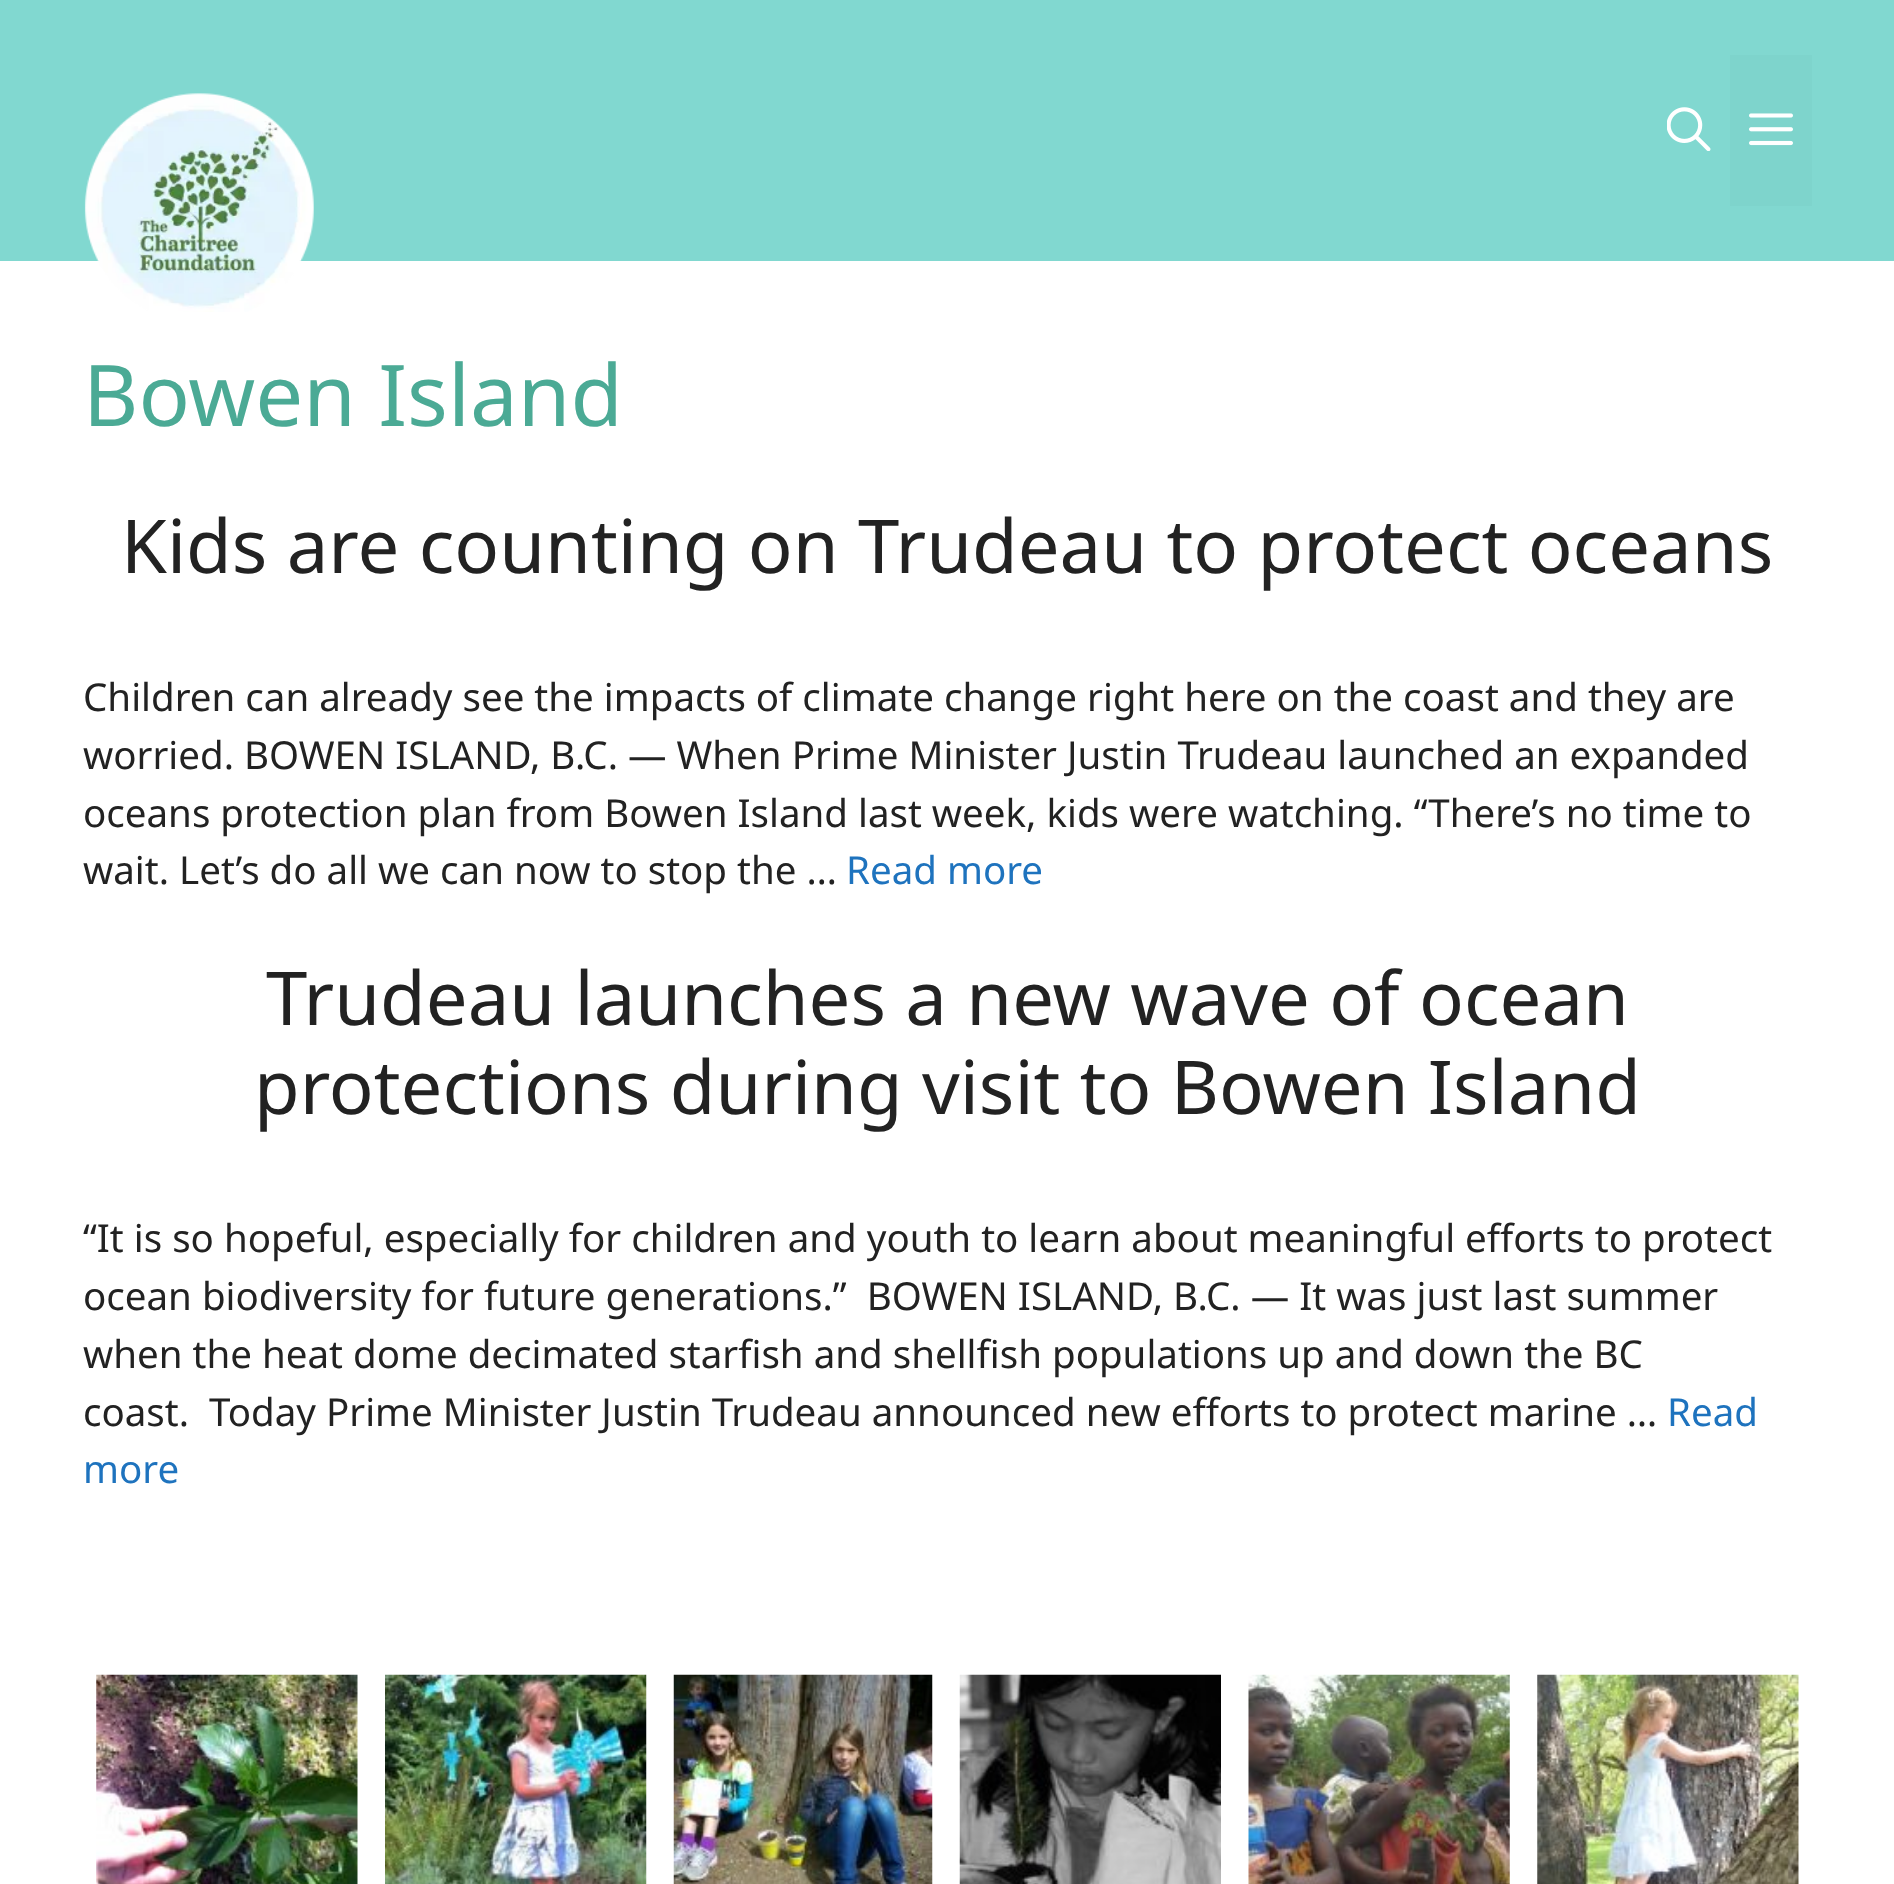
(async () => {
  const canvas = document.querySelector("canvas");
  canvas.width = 1894;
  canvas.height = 1884;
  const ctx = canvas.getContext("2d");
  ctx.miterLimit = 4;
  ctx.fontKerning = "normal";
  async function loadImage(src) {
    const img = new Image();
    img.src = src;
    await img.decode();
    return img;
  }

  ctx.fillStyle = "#ffffff";
  ctx.fillRect(0, 0, 1894, 1884);
  ctx.fillStyle = "#81d8d0";
  ctx.fillRect(0, 0, 1894, 261);
  ctx.drawImage(await loadImage("img/1.png"), 84, 93, 230, 219);
  ctx.drawImage(await loadImage("img/2.png"), 1667, 107, 44, 44);
  ctx.fillStyle = "#7ed4cc";
  ctx.fillRect(1730, 55, 82, 151);
  ctx.drawImage(await loadImage("img/3.png"), 1749, 113, 44, 33);
  ctx.drawImage(await loadImage("img/4.png"), 96, 1674, 262, 210);
  ctx.drawImage(await loadImage("img/5.png"), 385, 1674, 262, 210);
  ctx.drawImage(await loadImage("img/6.png"), 673, 1674, 260, 210);
  ctx.drawImage(await loadImage("img/7.png"), 959, 1674, 262, 210);
  ctx.drawImage(await loadImage("img/8.png"), 1248, 1674, 262, 210);
  ctx.drawImage(await loadImage("img/9.png"), 1537, 1674, 262, 210);
  ctx.font = "85.25px Noto Sans";
  ctx.fillStyle = "#4baa95";
  ctx.fillText("Bowen Island", 83, 426);
  ctx.font = "74.25px Noto Sans";
  ctx.fillStyle = "#222222";
  ctx.fillText("Kids are counting on Trudeau to protect oceans", 121, 573);
  ctx.font = "38.5px Noto Sans";
  for (const [text, x, y] of [
    ["Children can already see the impacts of climate change right here on the coast and they are", 83, 711],
    ["worried. BOWEN ISLAND, B.C. — When Prime Minister Justin Trudeau launched an expanded", 83, 769],
    ["oceans protection plan from Bowen Island last week, kids were watching. “There’s no time to", 83, 827],
    ["wait. Let’s do all we can now to stop the …", 83, 884],
  ]) {
    ctx.fillText(text, x, y);
  }
  ctx.fillStyle = "#1e73be";
  ctx.fillText("Read more", 846, 884);
  ctx.font = "74.25px Noto Sans";
  ctx.fillStyle = "#222222";
  ctx.fillText("Trudeau launches a new wave of ocean", 266, 1025);
  ctx.fillText("protections during visit to Bowen Island", 254, 1114);
  ctx.font = "38.5px Noto Sans";
  for (const [text, x, y] of [
    ["“It is so hopeful, especially for children and youth to learn about meaningful efforts to protect", 83, 1252],
    ["ocean biodiversity for future generations.”  BOWEN ISLAND, B.C. — It was just last summer", 83, 1310],
    ["when the heat dome decimated starfish and shellfish populations up and down the BC", 83, 1368],
    ["coast.  Today Prime Minister Justin Trudeau announced new efforts to protect marine …", 83, 1426],
  ]) {
    ctx.fillText(text, x, y);
  }
  ctx.fillStyle = "#1e73be";
  ctx.fillText("Read", 1667, 1426);
  ctx.fillText("more", 83, 1483);
})();
